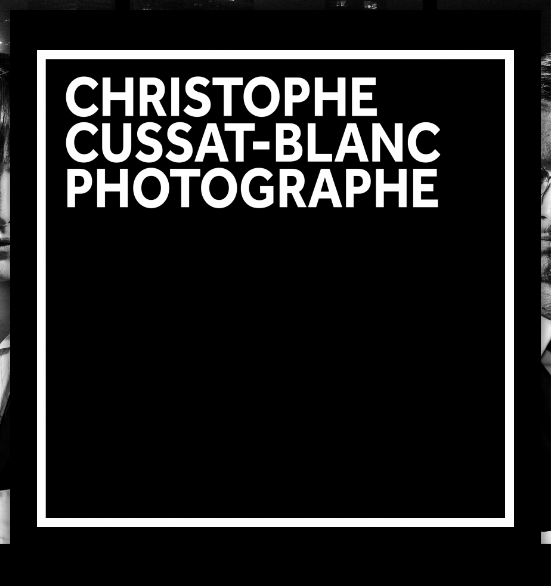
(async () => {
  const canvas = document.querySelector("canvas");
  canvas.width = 551;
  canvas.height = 586;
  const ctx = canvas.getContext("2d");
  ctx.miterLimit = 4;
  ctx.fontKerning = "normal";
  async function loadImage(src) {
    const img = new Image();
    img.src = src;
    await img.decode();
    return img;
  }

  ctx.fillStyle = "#ffffff";
  ctx.fillRect(0, 0, 551, 586);
  ctx.drawImage(await loadImage("img/1.png"), 0, 0, 551, 586);
  ctx.fillStyle = "rgba(0, 0, 0, 0.4)";
  ctx.filter = "blur(4px)";
  ctx.beginPath();
  ctx.rect(6, 6, 539, 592);
  ctx.fill();
  ctx.filter = "none";
  ctx.fillStyle = "#000000";
  ctx.fillRect(10, 10, 531, 576);
  ctx.drawImage(await loadImage("img/2.png"), 37, 50, 477, 477);
})();
